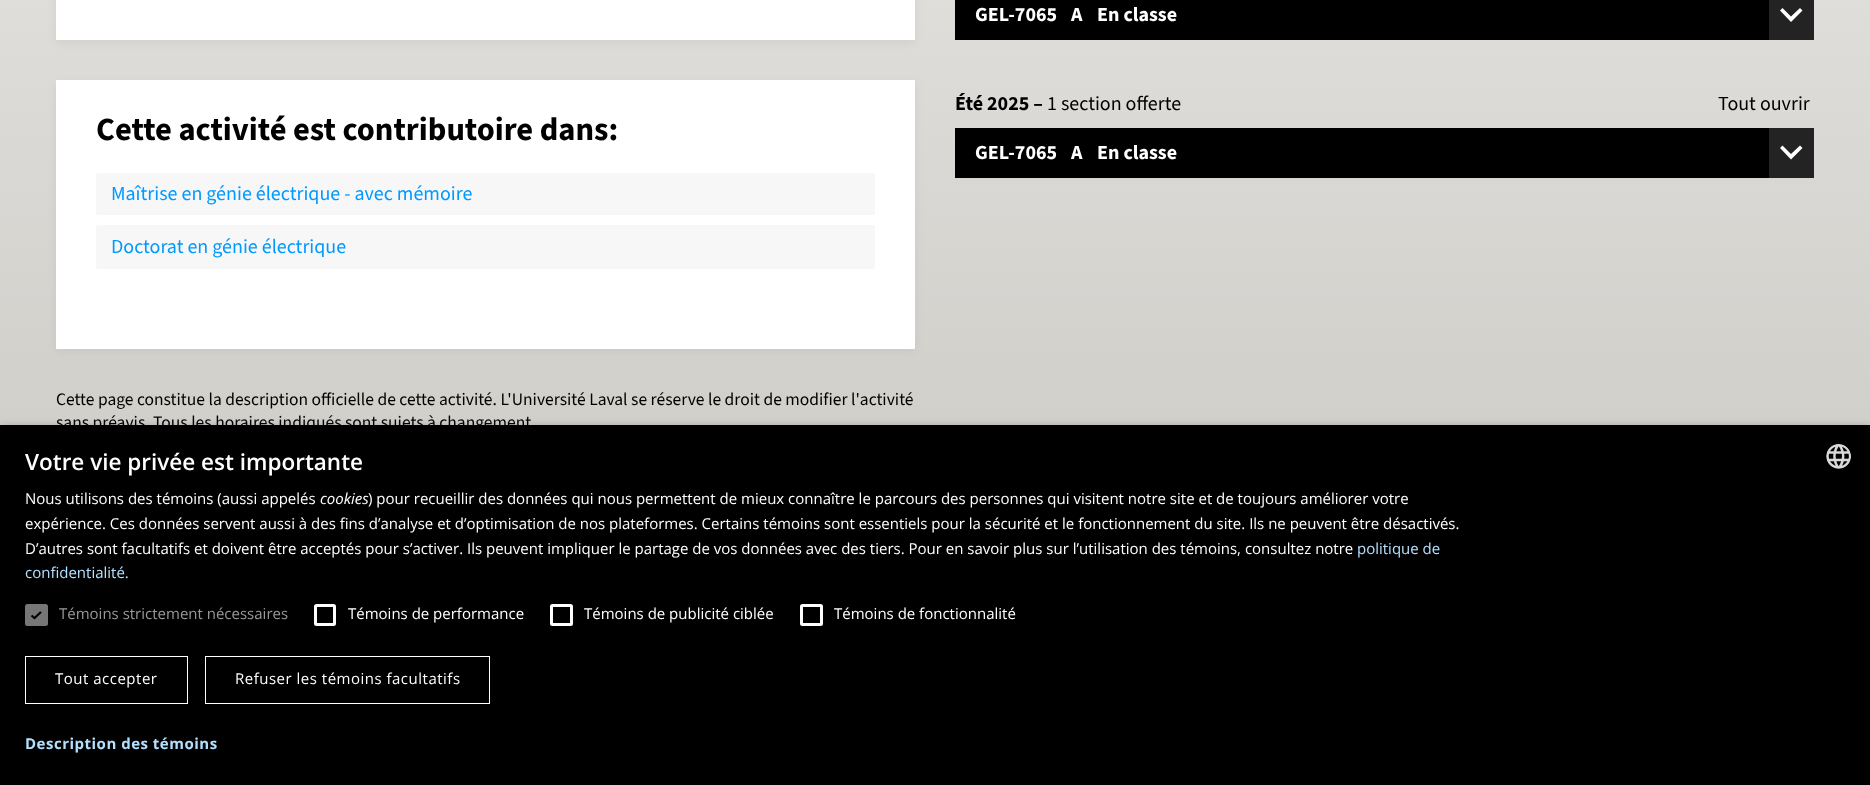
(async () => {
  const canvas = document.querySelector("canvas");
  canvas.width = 1870;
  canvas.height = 785;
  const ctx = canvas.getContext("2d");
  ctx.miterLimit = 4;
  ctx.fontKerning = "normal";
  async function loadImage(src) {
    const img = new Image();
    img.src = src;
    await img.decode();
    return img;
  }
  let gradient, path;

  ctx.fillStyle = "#ffffff";
  ctx.fillRect(0, 0, 1870, 785);
  gradient = ctx.createLinearGradient(935, -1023, 935, 469);
  gradient.addColorStop(0, "#ffffff");
  gradient.addColorStop(1, "#d0cec9");
  ctx.fillStyle = gradient;
  ctx.fillRect(0, 0, 1870, 425);
  ctx.fillStyle = "#232323";
  ctx.fillRect(1769, 0, 45, 40);
  ctx.fillStyle = "#000000";
  ctx.fillRect(955, 0, 814, 40);
  ctx.fillStyle = "#ffffff";
  path = new Path2D("M1782.5 8L1791 16.5L1800 8L1802.5 10.5L1791 22L1780 10.5Z");
  ctx.fill(path);
  ctx.fillStyle = "#232323";
  ctx.fillRect(1769, 128, 45, 50);
  ctx.fillStyle = "#000000";
  ctx.fillRect(955, 128, 814, 50);
  ctx.fillStyle = "#ffffff";
  path = new Path2D("M1782.5 145.5L1791 154L1800 145.5L1802.5 148L1791 159.5L1780 148Z");
  ctx.fill(path);
  ctx.fillStyle = "rgba(0, 0, 0, 0.05)";
  ctx.filter = "blur(5px)";
  ctx.beginPath();
  ctx.rect(56, -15, 859, 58);
  ctx.fill();
  ctx.filter = "none";
  ctx.fillStyle = "#ffffff";
  ctx.fillRect(56, 0, 859, 40);
  ctx.fillStyle = "rgba(0, 0, 0, 0.05)";
  ctx.filter = "blur(5px)";
  ctx.beginPath();
  ctx.rect(56, 83, 859, 268);
  ctx.fill();
  ctx.filter = "none";
  ctx.fillStyle = "#ffffff";
  ctx.fillRect(56, 80, 859, 269);
  ctx.fillStyle = "#f7f7f7";
  ctx.beginPath();
  ctx.roundRect(96, 173, 779, 42, 2.5);
  ctx.fill();
  ctx.beginPath();
  ctx.roundRect(96, 225, 779, 44, 2.5);
  ctx.fill();
  ctx.fillStyle = "rgba(0, 0, 0, 0.35)";
  ctx.filter = "blur(5px)";
  ctx.beginPath();
  ctx.rect(1, 428, 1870, 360);
  ctx.fill();
  ctx.filter = "none";
  ctx.fillStyle = "#000000";
  ctx.fillRect(0, 425, 1870, 360);
  ctx.drawImage(await loadImage("img/1.png"), 1826, 444, 25, 25);
  ctx.fillStyle = "#767676";
  ctx.beginPath();
  ctx.roundRect(25, 604, 23, 22, 2.5);
  ctx.fill();
  path = new Path2D("M31.5 615.5L34.5 618L41 612");
  ctx.strokeStyle = "#000000";
  ctx.lineWidth = 2.2;
  ctx.stroke(path);
  ctx.beginPath();
  ctx.roundRect(315.5, 605.5, 19, 19, 1);
  ctx.strokeStyle = "#ffffff";
  ctx.lineWidth = 3;
  ctx.stroke();
  ctx.beginPath();
  ctx.roundRect(551.5, 605.5, 20, 19, 1);
  ctx.stroke();
  ctx.beginPath();
  ctx.roundRect(801.5, 605.5, 20, 19, 1);
  ctx.stroke();
  ctx.lineWidth = 1;
  ctx.strokeRect(25.5, 656.5, 162, 47);
  ctx.strokeRect(205.5, 656.5, 284, 47);
  ctx.font = "bold 20px 'Source Sans 3'";
  ctx.fillStyle = "#ffffff";
  for (const [text, x, y] of [
    ["GEL-7065", 975, 21],
    ["A", 1071, 21],
    ["En classe", 1097, 21],
  ]) {
    ctx.fillText(text, x, y);
  }
  ctx.fillStyle = "#000000";
  ctx.fillText("Été 2025 –", 955, 110);
  ctx.font = "20px 'Source Sans 3'";
  ctx.fillText("1 section offerte", 1047, 110);
  ctx.fillText("Tout ouvrir", 1718, 110);
  ctx.font = "bold 20px 'Source Sans 3'";
  ctx.fillStyle = "#ffffff";
  for (const [text, x, y] of [
    ["GEL-7065", 975, 159],
    ["A", 1071, 159],
    ["En classe", 1097, 159],
  ]) {
    ctx.fillText(text, x, y);
  }
  ctx.font = "bold 32.5px 'Source Sans 3'";
  ctx.fillStyle = "#000000";
  ctx.fillText("Cette activité est contributoire dans:", 96, 140);
  ctx.font = "20px 'Source Sans 3'";
  ctx.fillStyle = "#0099ff";
  ctx.fillText("Maîtrise en génie électrique - avec mémoire", 111, 200);
  ctx.fillText("Doctorat en génie électrique", 111, 253);
  ctx.font = "17.5px 'Source Sans 3'";
  ctx.fillStyle = "#000000";
  ctx.fillText("Cette page constitue la description officielle de cette activité. L'Université Laval se réserve le droit de modifier l'activité", 56, 405);
  ctx.fillText("sans préavis. Tous les horaires indiqués sont sujets à changement", 56, 428);
  ctx.font = "600 22.5px Open Sans";
  ctx.fillStyle = "#ffffff";
  ctx.fillText("Votre vie privée est importante", 25, 470);
  ctx.font = "15px Open Sans";
  ctx.fillText("Nous utilisons des témoins (aussi appelés", 25, 504);
  ctx.font = "italic 15px Open Sans";
  ctx.fillText("cookies", 320, 504);
  ctx.font = "15px Open Sans";
  for (const [text, x, y] of [
    [") pour recueillir des données qui nous permettent de mieux connaître le parcours des personnes qui visitent notre site et de toujours améliorer votre", 368, 504],
    ["expérience. Ces données servent aussi à des fins d’analyse et d’optimisation de nos plateformes. Certains témoins sont essentiels pour la sécurité et le fonctionnement du site. Ils ne peuvent être désactivés.", 25, 529],
    ["D’autres sont facultatifs et doivent être acceptés pour s’activer. Ils peuvent impliquer le partage de vos données avec des tiers. Pour en savoir plus sur l’utilisation des témoins, consultez notre", 25, 554],
  ]) {
    ctx.fillText(text, x, y);
  }
  ctx.fillStyle = "#b2e0ff";
  ctx.fillText("politique de", 1357, 554);
  ctx.fillText("confidentialité.", 25, 578);
  ctx.fillStyle = "#999999";
  ctx.fillText("Témoins strictement nécessaires", 59, 619);
  ctx.fillStyle = "#ffffff";
  for (const [text, x, y] of [
    ["Témoins de performance", 348, 619],
    ["Témoins de publicité ciblée", 584, 619],
    ["Témoins de fonctionnalité", 834, 619],
  ]) {
    ctx.fillText(text, x, y);
  }
  ctx.letterSpacing = "0.5px";
  ctx.fillText("Tout accepter", 55, 684);
  ctx.fillText("Refuser les témoins facultatifs", 235, 684);
  ctx.font = "bold 15px Open Sans";
  ctx.fillStyle = "#b2e0ff";
  ctx.fillText("Description des témoins", 25, 749);
})();
